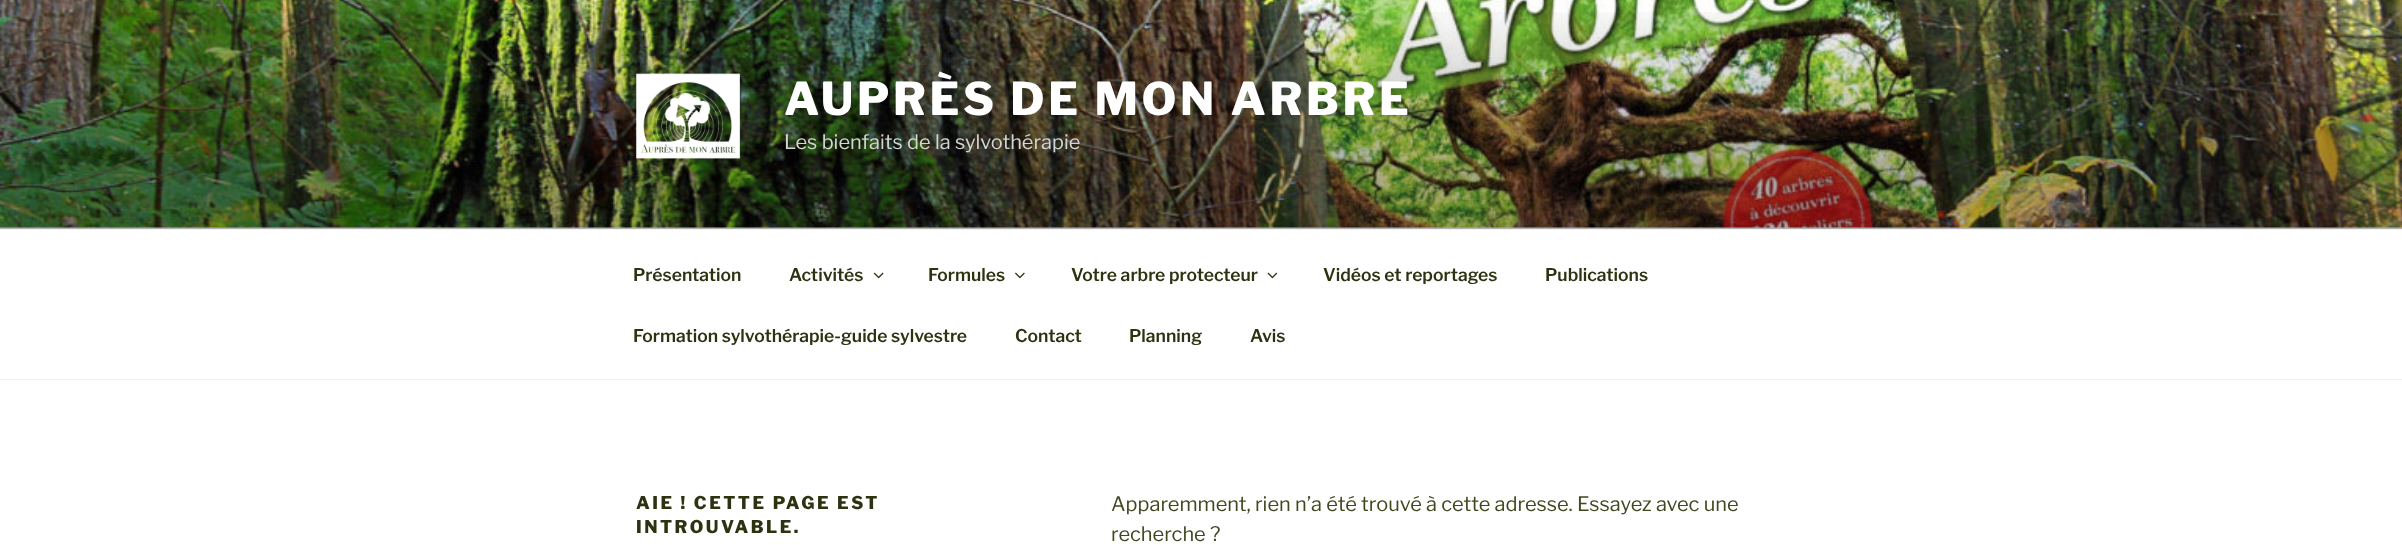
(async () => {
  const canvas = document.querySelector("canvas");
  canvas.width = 2402;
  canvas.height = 545;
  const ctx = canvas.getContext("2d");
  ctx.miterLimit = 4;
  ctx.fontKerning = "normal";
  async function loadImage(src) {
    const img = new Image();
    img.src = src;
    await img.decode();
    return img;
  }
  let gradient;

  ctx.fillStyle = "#ffffff";
  ctx.fillRect(0, 0, 2402, 545);
  ctx.drawImage(await loadImage("img/1.png"), 0, 0, 2402, 228);
  gradient = ctx.createLinearGradient(1201, 0, 1201, 229);
  gradient.addColorStop(0, "rgba(0, 0, 0, 0)");
  gradient.addColorStop(0.75, "rgba(0, 0, 0, 0.3)");
  gradient.addColorStop(1, "rgba(0, 0, 0, 0.3)");
  ctx.fillStyle = gradient;
  ctx.fillRect(0, 12, 2402, 217);
  ctx.drawImage(await loadImage("img/2.png"), 636, 73, 104, 86);
  ctx.fillStyle = "#f4f6e4";
  ctx.fillRect(0, 229, 2402, 1);
  ctx.fillRect(0, 379, 2402, 1);
  ctx.drawImage(await loadImage("img/3.png"), 873, 272, 11, 7);
  ctx.drawImage(await loadImage("img/4.png"), 1015, 272, 10, 7);
  ctx.drawImage(await loadImage("img/5.png"), 1267, 272, 11, 7);
  ctx.letterSpacing = "3.6px";
  ctx.font = "100 45px Libre Franklin";
  ctx.fillStyle = "#ffffff";
  ctx.fillText("AUPRÈS DE MON ARBRE", 784, 115);
  ctx.letterSpacing = "0px";
  ctx.font = "100 20px 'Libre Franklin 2'";
  ctx.fillStyle = "#d4d6d2";
  ctx.fillText("Les bienfaits de la sylvothérapie", 784, 149);
  ctx.font = "100 17.5px 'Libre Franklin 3'";
  ctx.fillStyle = "#2e3211";
  for (const [text, x, y] of [
    ["Présentation", 633, 281],
    ["Activités", 789, 281],
    ["Formules", 928, 281],
    ["Votre arbre protecteur", 1071, 281],
    ["Vidéos et reportages", 1323, 281],
    ["Publications", 1545, 281],
    ["Formation sylvothérapie-guide sylvestre", 633, 342],
    ["Contact", 1015, 342],
    ["Planning", 1129, 342],
    ["Avis", 1250, 342],
  ]) {
    ctx.fillText(text, x, y);
  }
  ctx.letterSpacing = "2.5px";
  ctx.font = "100 17.5px Libre Franklin";
  ctx.fillText("AIE ! CETTE PAGE EST", 636, 509);
  ctx.fillText("INTROUVABLE.", 636, 533);
  ctx.letterSpacing = "0px";
  ctx.font = "100 20px 'Libre Franklin 2'";
  ctx.fillStyle = "#43471f";
  ctx.fillText("Apparemment, rien n’a été trouvé à cette adresse. Essayez avec une", 1111, 511);
  ctx.fillText("recherche ?", 1111, 541);
})();
